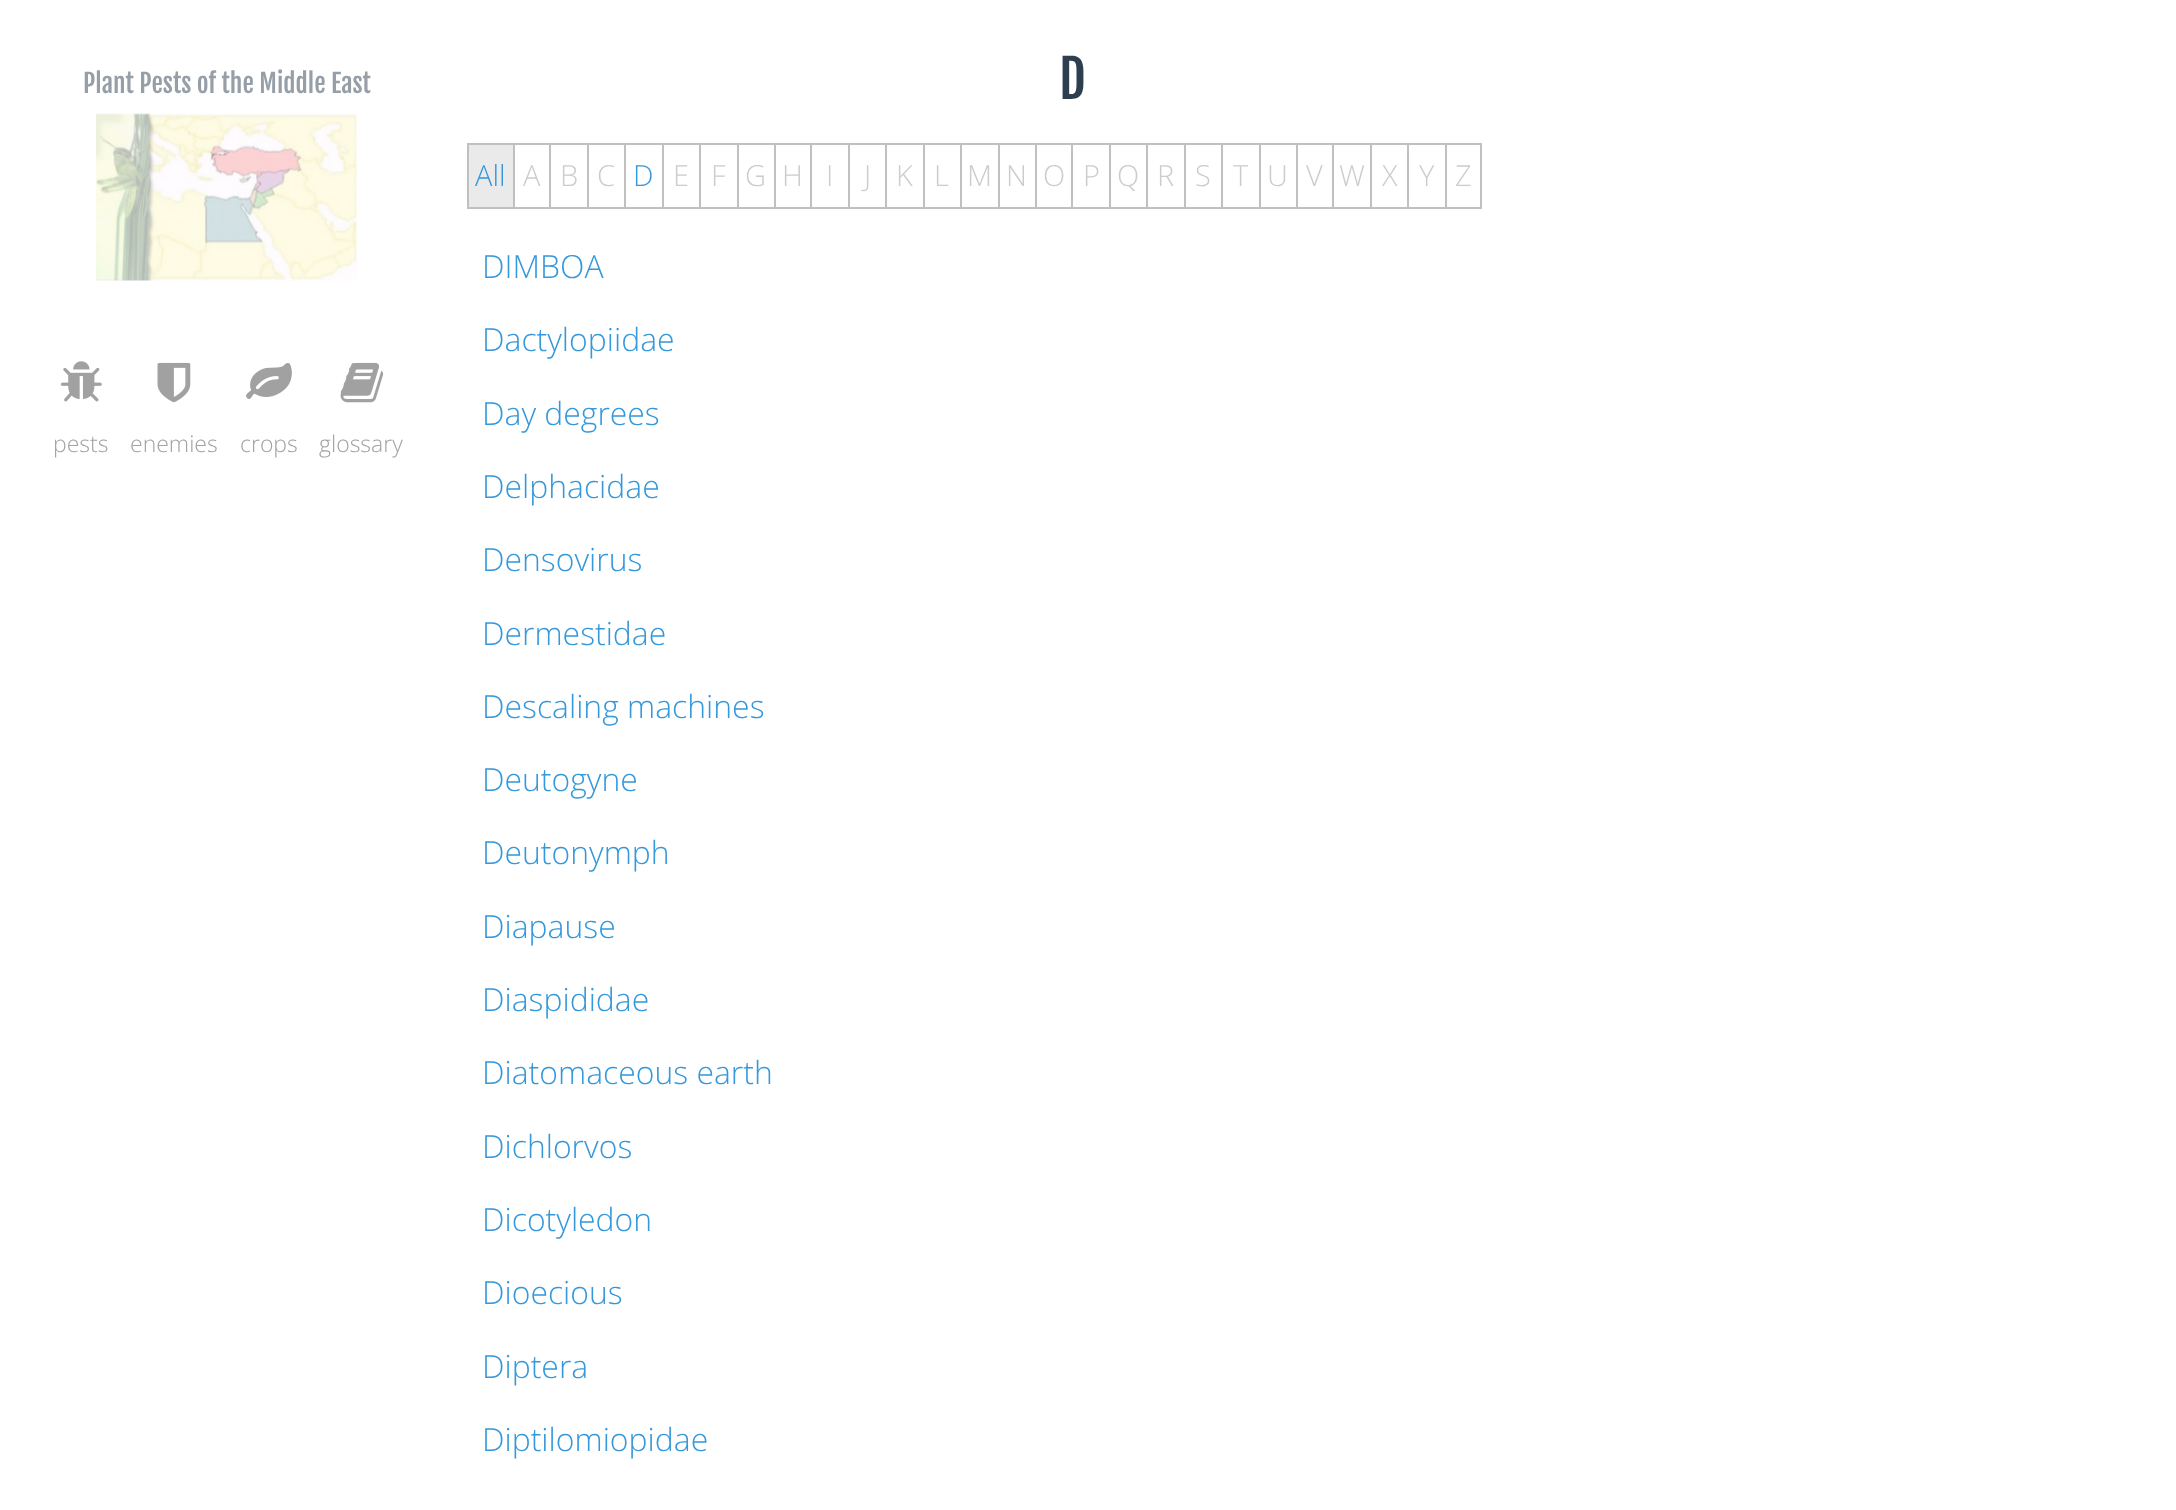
(async () => {
  const canvas = document.querySelector("canvas");
  canvas.width = 2176;
  canvas.height = 1510;
  const ctx = canvas.getContext("2d");
  ctx.miterLimit = 4;
  ctx.fontKerning = "normal";
  async function loadImage(src) {
    const img = new Image();
    img.src = src;
    await img.decode();
    return img;
  }

  ctx.fillStyle = "#ffffff";
  ctx.fillRect(0, 0, 2176, 1510);
  ctx.drawImage(await loadImage("img/1.png"), 96, 113, 261, 168);
  ctx.drawImage(await loadImage("img/2.png"), 60, 361, 42, 41);
  ctx.drawImage(await loadImage("img/3.png"), 157, 362, 34, 41);
  ctx.drawImage(await loadImage("img/4.png"), 246, 363, 46, 36);
  ctx.drawImage(await loadImage("img/5.png"), 340, 362, 44, 41);
  for (const [x, y, w, h, color] of [
    [469, 145, 44, 62, "#eaeaea"],
    [467, 143, 978, 2, "#c0c0c0"],
    [467, 207, 978, 2, "#c0c0c0"],
    [467, 143, 2, 66, "#c0c0c0"],
    [513, 143, 2, 66, "#c0c0c0"],
    [549, 143, 2, 66, "#c0c0c0"],
    [587, 143, 2, 66, "#c0c0c0"],
    [624, 143, 2, 66, "#c0c0c0"],
    [662, 143, 2, 66, "#c0c0c0"],
    [699, 143, 2, 66, "#c0c0c0"],
    [737, 143, 2, 66, "#c0c0c0"],
    [774, 143, 2, 66, "#c0c0c0"],
    [810, 143, 2, 66, "#c0c0c0"],
    [848, 143, 2, 66, "#c0c0c0"],
    [885, 143, 2, 66, "#c0c0c0"],
    [923, 143, 2, 66, "#c0c0c0"],
    [960, 143, 2, 66, "#c0c0c0"],
    [998, 143, 2, 66, "#c0c0c0"],
    [1035, 143, 2, 66, "#c0c0c0"],
    [1071, 143, 2, 66, "#c0c0c0"],
    [1109, 143, 2, 66, "#c0c0c0"],
    [1146, 143, 2, 66, "#c0c0c0"],
    [1184, 143, 2, 66, "#c0c0c0"],
    [1221, 143, 2, 66, "#c0c0c0"],
    [1259, 143, 2, 66, "#c0c0c0"],
    [1296, 143, 2, 66, "#c0c0c0"],
    [1332, 143, 2, 66, "#c0c0c0"],
    [1370, 143, 2, 66, "#c0c0c0"],
    [1407, 143, 2, 66, "#c0c0c0"],
  ]) {
    ctx.fillStyle = color;
    ctx.fillRect(x, y, w, h);
  }
  ctx.strokeStyle = "#c0c0c0";
  ctx.lineWidth = 2;
  ctx.strokeRect(1446, 144, 35, 64);
  ctx.font = "25.5px Fjalla One";
  ctx.fillStyle = "#969fa8";
  ctx.fillText("Plant Pests of the Middle East", 83, 93);
  ctx.font = "300 23px Open Sans";
  ctx.fillStyle = "#a2a2a2";
  for (const [text, x, y] of [
    ["pests", 53, 452],
    ["enemies", 130, 452],
    ["crops", 240, 452],
    ["glossary", 319, 452],
  ]) {
    ctx.fillText(text, x, y);
  }
  ctx.font = "52px Fjalla One";
  ctx.fillStyle = "#2c3e50";
  ctx.fillText("D", 1059, 99);
  ctx.font = "300 29px Open Sans";
  ctx.fillStyle = "#3498db";
  ctx.fillText("All", 475, 186);
  ctx.fillStyle = "#cccccc";
  for (const [text, x, y] of [
    ["A", 523, 186],
    ["B", 560, 186],
    ["C", 597, 186],
  ]) {
    ctx.fillText(text, x, y);
  }
  ctx.fillStyle = "#3498db";
  ctx.fillText("D", 633, 186);
  ctx.fillStyle = "#cccccc";
  for (const [text, x, y] of [
    ["E", 673, 186],
    ["F", 711, 186],
    ["G", 745, 186],
    ["H", 782, 186],
    ["I", 826, 186],
    ["J", 864, 186],
    ["K", 896, 186],
    ["L", 934, 186],
    ["M", 967, 186],
    ["N", 1006, 186],
    ["O", 1043, 186],
    ["P", 1083, 186],
    ["Q", 1117, 186],
    ["R", 1157, 186],
    ["S", 1195, 186],
    ["T", 1233, 186],
    ["U", 1267, 186],
    ["V", 1306, 186],
    ["W", 1339, 186],
    ["X", 1382, 186],
    ["Y", 1419, 186],
    ["Z", 1455, 186],
  ]) {
    ctx.fillText(text, x, y);
  }
  ctx.font = "300 31.9px Open Sans";
  ctx.fillStyle = "#3498db";
  for (const [text, x, y] of [
    ["DIMBOA", 482, 278],
    ["Dactylopiidae", 482, 351],
    ["Day degrees", 482, 425],
    ["Delphacidae", 482, 498],
    ["Densovirus", 482, 571],
    ["Dermestidae", 482, 645],
    ["Descaling machines", 482, 718],
    ["Deutogyne", 482, 791],
    ["Deutonymph", 482, 864],
    ["Diapause", 482, 938],
    ["Diaspididae", 482, 1011],
    ["Diatomaceous earth", 482, 1084],
    ["Dichlorvos", 482, 1158],
    ["Dicotyledon", 482, 1231],
    ["Dioecious", 482, 1304],
    ["Diptera", 482, 1378],
    ["Diptilomiopidae", 482, 1451],
  ]) {
    ctx.fillText(text, x, y);
  }
})();
